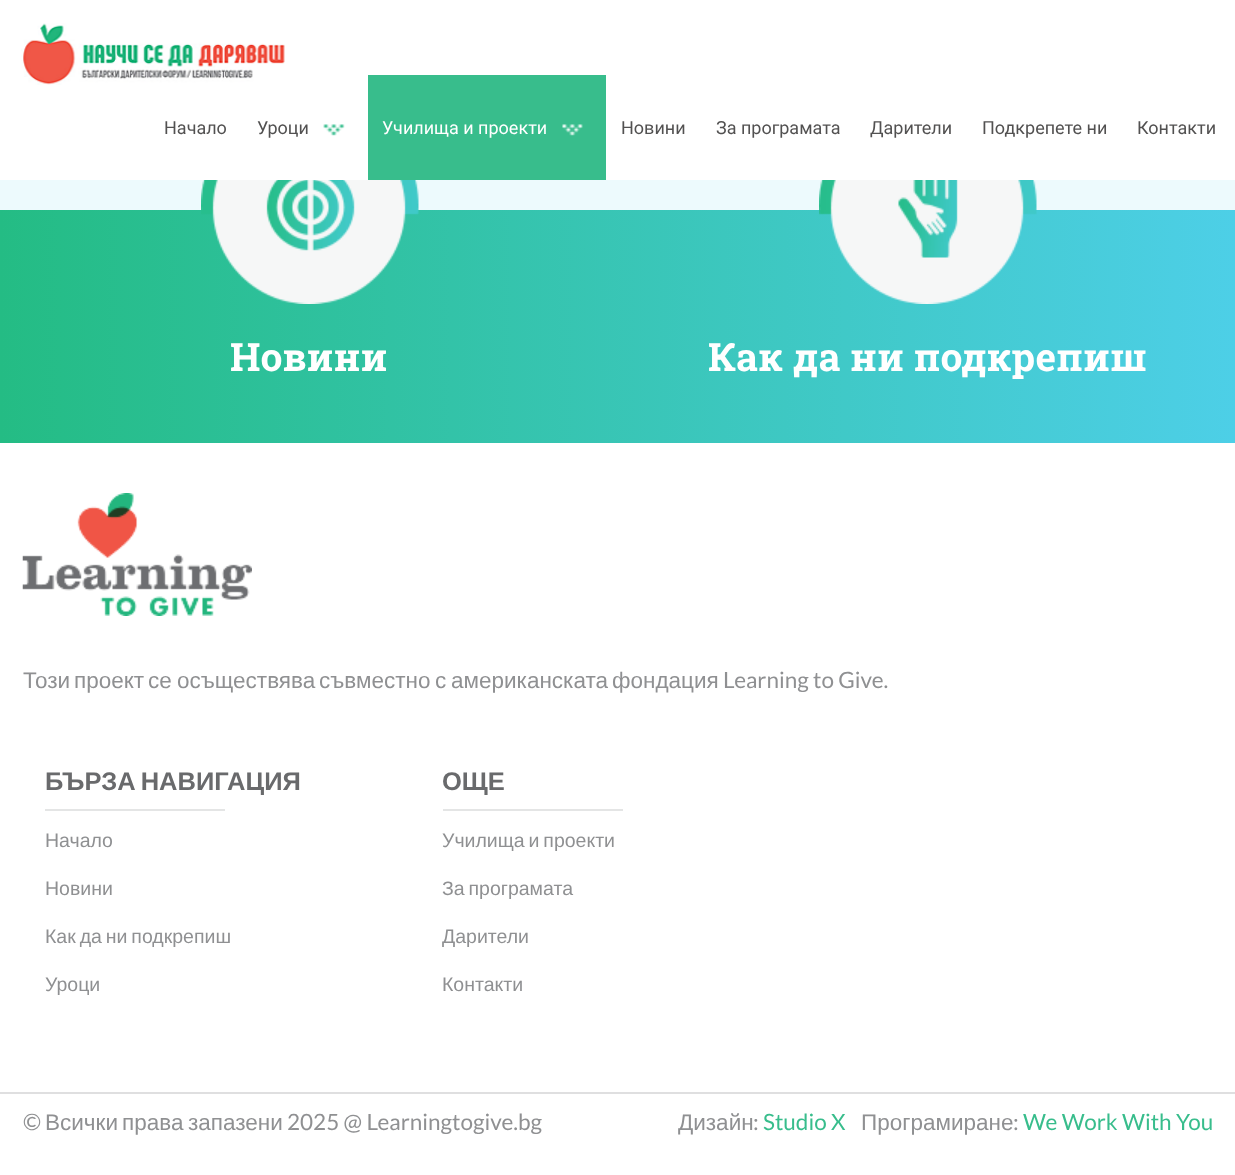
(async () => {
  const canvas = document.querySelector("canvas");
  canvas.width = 1235;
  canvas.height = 1175;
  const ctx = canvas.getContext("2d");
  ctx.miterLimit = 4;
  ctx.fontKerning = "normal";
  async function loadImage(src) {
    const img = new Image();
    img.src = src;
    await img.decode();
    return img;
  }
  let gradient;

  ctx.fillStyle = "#ffffff";
  ctx.fillRect(0, 0, 1235, 1175);
  ctx.drawImage(await loadImage("img/1.png"), 21, 23, 264, 62);
  ctx.drawImage(await loadImage("img/2.png"), 323, 124, 22, 12);
  ctx.fillStyle = "#38bd8c";
  ctx.fillRect(368, 75, 238, 105);
  ctx.drawImage(await loadImage("img/3.png"), 562, 124, 21, 12);
  ctx.fillStyle = "#edfafd";
  ctx.fillRect(0, 180, 1235, 30);
  gradient = ctx.createLinearGradient(0, 326, 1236, 326);
  gradient.addColorStop(0, "#24bc84");
  gradient.addColorStop(1, "#4dcfe7");
  ctx.fillStyle = gradient;
  ctx.fillRect(0, 210, 1235, 233);
  ctx.drawImage(await loadImage("img/4.png"), 201, 180, 218, 124);
  ctx.drawImage(await loadImage("img/5.png"), 819, 180, 218, 124);
  ctx.drawImage(await loadImage("img/6.png"), 22, 493, 230, 123);
  for (const [x, y, w, h, color] of [
    [45, 809, 180, 2, "#e4e5e5"],
    [443, 809, 180, 2, "#e4e5e5"],
    [0, 1092, 1235, 2, "#dfdfe0"],
  ]) {
    ctx.fillStyle = color;
    ctx.fillRect(x, y, w, h);
  }
  ctx.font = "18px Roboto";
  ctx.fillStyle = "#525151";
  ctx.fillText("Начало", 164, 134);
  ctx.fillText("Уроци", 257, 134);
  ctx.fillStyle = "#ffffff";
  ctx.fillText("Училища и проекти", 382, 134);
  ctx.fillStyle = "#525151";
  for (const [text, x, y] of [
    ["Новини", 621, 134],
    ["За програмата", 716, 134],
    ["Дарители", 870, 134],
    ["Подкрепете ни", 982, 134],
    ["Контакти", 1137, 134],
  ]) {
    ctx.fillText(text, x, y);
  }
  ctx.font = "bold 39px Roboto Slab";
  ctx.fillStyle = "#ffffff";
  ctx.fillText("Новини", 230, 371);
  ctx.fillText("Как да ни подкрепиш", 708, 371);
  ctx.font = "22.5px Liberation Sans";
  ctx.fillStyle = "#8f9092";
  for (const [text, x, y] of [
    ["Този", 23, 688],
    ["проект", 74, 688],
    ["се", 148, 688],
    ["осъществява", 177, 688],
    ["съвместно", 319, 688],
    ["с", 435, 688],
    ["американската", 451, 688],
    ["фондация", 612, 688],
  ]) {
    ctx.fillText(text, x, y);
  }
  ctx.font = "22.5px Lato";
  ctx.fillText("Learning to Give.", 723, 688);
  ctx.wordSpacing = "-2px";
  ctx.font = "bold 25.5px Liberation Sans";
  ctx.fillStyle = "#696a6c";
  ctx.fillText("БЪРЗА НАВИГАЦИЯ", 45, 790);
  ctx.wordSpacing = "0px";
  ctx.font = "19.5px Liberation Sans";
  ctx.fillStyle = "#8f9092";
  ctx.fillText("Начало", 45, 847);
  ctx.fillText("Новини", 45, 895);
  ctx.wordSpacing = "-1.5px";
  ctx.fillText("Как да ни подкрепиш", 45, 943);
  ctx.wordSpacing = "0px";
  ctx.fillText("Уроци", 45, 991);
  ctx.font = "bold 25.5px Liberation Sans";
  ctx.fillStyle = "#696a6c";
  ctx.fillText("ОЩЕ", 442, 790);
  ctx.wordSpacing = "-1.5px";
  ctx.font = "19.5px Liberation Sans";
  ctx.fillStyle = "#8f9092";
  ctx.fillText("Училища и проекти", 442, 847);
  ctx.fillText("За програмата", 442, 895);
  ctx.wordSpacing = "0px";
  ctx.fillText("Дарители", 442, 943);
  ctx.fillText("Контакти", 442, 991);
  ctx.font = "22.5px Lato";
  ctx.fillText("©", 23, 1130);
  ctx.font = "22.5px Liberation Sans";
  for (const [text, x, y] of [
    ["Всички", 45, 1130],
    ["права", 122, 1130],
    ["запазени", 188, 1130],
  ]) {
    ctx.fillText(text, x, y);
  }
  ctx.font = "22.5px Lato";
  ctx.fillText("2025 @ Learningtogive.bg", 287, 1130);
  ctx.font = "22.5px Liberation Sans";
  ctx.fillText("Дизайн", 678, 1130);
  ctx.font = "22.5px Lato";
  ctx.fillText(":", 753, 1130);
  ctx.fillStyle = "#38bd8c";
  ctx.fillText("Studio X", 763, 1130);
  ctx.font = "22.5px Liberation Sans";
  ctx.fillStyle = "#8f9092";
  ctx.fillText("Програмиране", 861, 1130);
  ctx.font = "22.5px Lato";
  ctx.fillText(":", 1013, 1130);
  ctx.fillStyle = "#38bd8c";
  ctx.fillText("We Work With You", 1023, 1130);
})();
